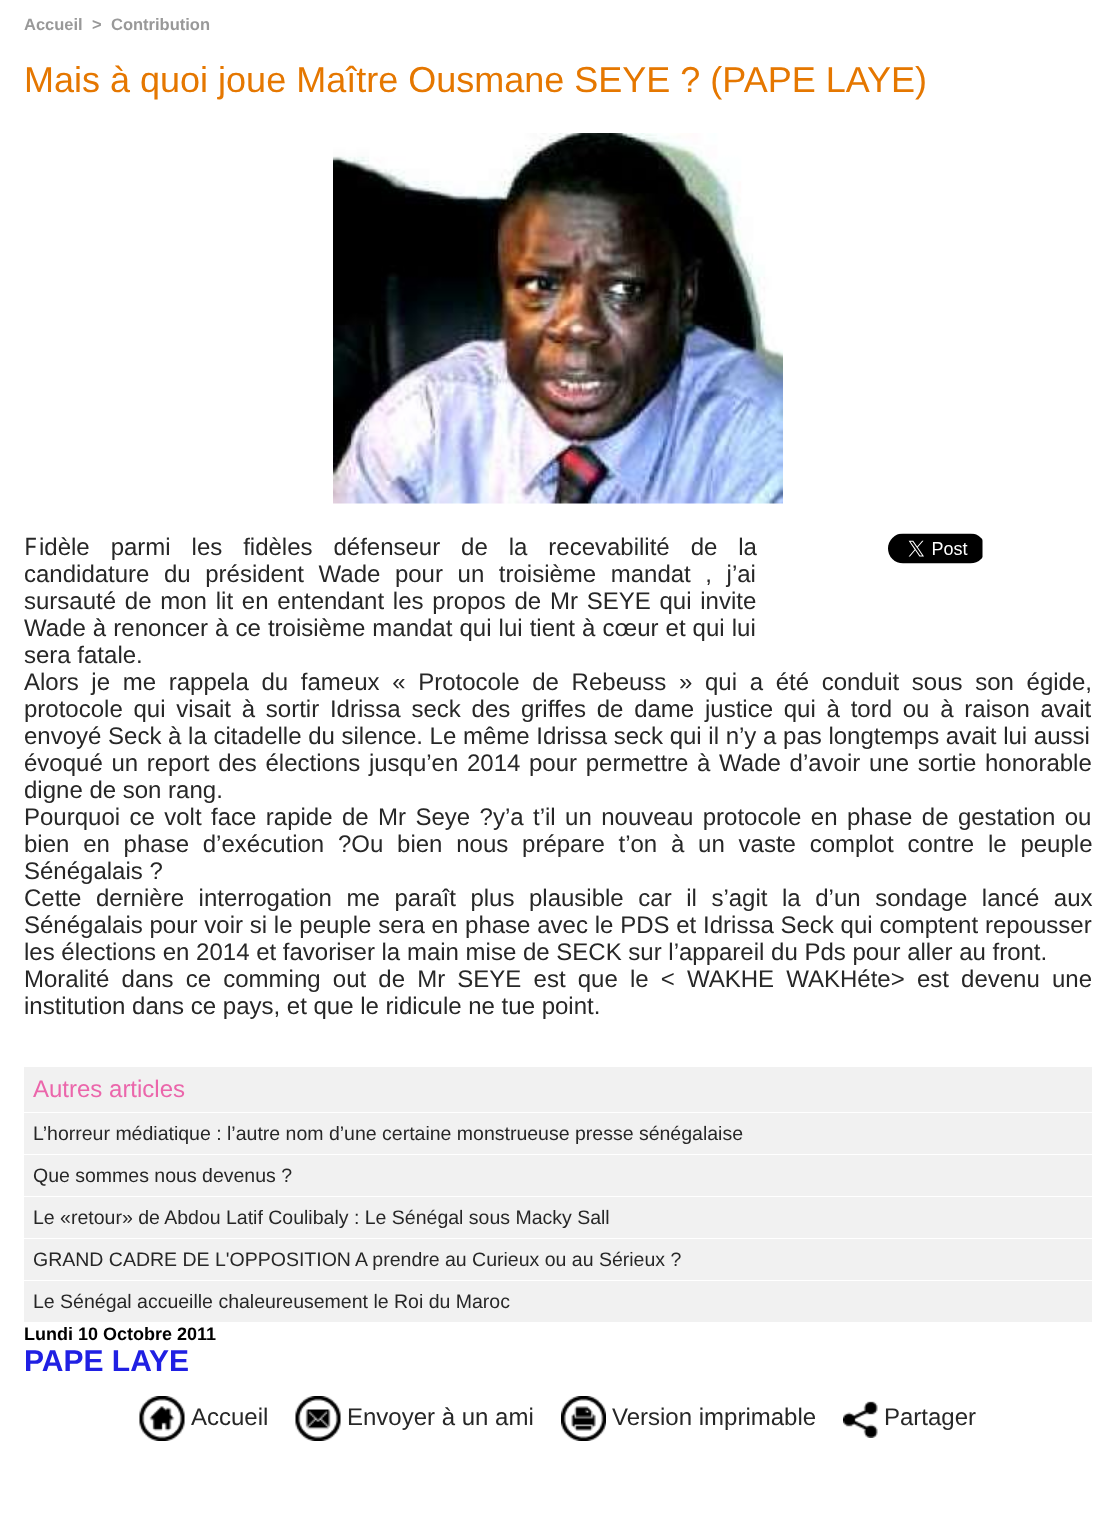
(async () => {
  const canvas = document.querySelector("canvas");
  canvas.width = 1116;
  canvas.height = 1525;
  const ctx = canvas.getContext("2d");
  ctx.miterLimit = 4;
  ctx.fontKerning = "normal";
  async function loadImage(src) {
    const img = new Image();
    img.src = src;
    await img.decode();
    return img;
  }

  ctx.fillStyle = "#ffffff";
  ctx.fillRect(0, 0, 1116, 1525);
  ctx.drawImage(await loadImage("img/1.png"), 333, 133, 450, 371);
  ctx.drawImage(await loadImage("img/2.png"), 888, 533, 95, 31);
  for (const [x, y, w, h, color] of [
    [24, 1067, 1068, 45, "#f1f1f1"],
    [24, 1113, 1068, 41, "#f1f1f1"],
    [24, 1155, 1068, 41, "#f1f1f1"],
    [24, 1197, 1068, 41, "#f1f1f1"],
    [24, 1239, 1068, 41, "#f1f1f1"],
    [24, 1281, 1068, 41, "#f1f1f1"],
  ]) {
    ctx.fillStyle = color;
    ctx.fillRect(x, y, w, h);
  }
  ctx.drawImage(await loadImage("img/3.png"), 139, 1396, 46, 45);
  ctx.drawImage(await loadImage("img/4.png"), 295, 1396, 46, 45);
  ctx.drawImage(await loadImage("img/5.png"), 561, 1396, 45, 45);
  ctx.drawImage(await loadImage("img/6.png"), 843, 1401, 35, 37);
  ctx.font = "bold 16.5px Liberation Sans";
  ctx.fillStyle = "#999999";
  for (const [text, x, y] of [
    ["Accueil", 24, 30],
    [">", 92, 30],
    ["Contribution", 111, 30],
  ]) {
    ctx.fillText(text, x, y);
  }
  ctx.font = "36px Liberation Sans";
  ctx.fillStyle = "#e57700";
  ctx.fillText("Mais à quoi joue Maître Ousmane SEYE ? (PAPE LAYE)", 24, 92);
  ctx.font = "24px Noto Sans";
  ctx.fillStyle = "#272727";
  ctx.fillText("F", 24, 555);
  ctx.wordSpacing = "14.25px";
  ctx.font = "24px Liberation Sans";
  ctx.fillText("idèle parmi les fidèles défenseur de la recevabilité de la", 39, 555);
  ctx.wordSpacing = "7.9px";
  ctx.fillText("candidature du président Wade pour un troisième mandat , j’ai", 24, 582);
  ctx.wordSpacing = "2.1px";
  ctx.fillText("sursauté de mon lit en entendant les propos de Mr SEYE qui invite", 24, 609);
  ctx.wordSpacing = "0.4px";
  ctx.fillText("Wade à renoncer à ce troisième mandat qui lui tient à cœur et qui lui", 24, 636);
  ctx.wordSpacing = "0px";
  ctx.fillText("sera fatale.", 24, 663);
  ctx.wordSpacing = "6px";
  ctx.fillText("Alors je me rappela du fameux « Protocole de Rebeuss » qui a été conduit sous son égide,", 24, 690);
  ctx.wordSpacing = "4.1px";
  ctx.fillText("protocole qui visait à sortir Idrissa seck des griffes de dame justice qui à tord ou à raison avait", 24, 717);
  ctx.wordSpacing = "0px";
  ctx.fillText("envoyé Seck à la citadelle du silence. Le même Idrissa seck qui il n’y a pas longtemps avait lui aussi", 24, 744);
  ctx.wordSpacing = "2px";
  ctx.fillText("évoqué un report des élections jusqu’en 2014 pour permettre à Wade d’avoir une sortie honorable", 24, 771);
  ctx.wordSpacing = "0px";
  ctx.fillText("digne de son rang.", 24, 798);
  ctx.wordSpacing = "2.75px";
  ctx.fillText("Pourquoi ce volt face rapide de Mr Seye ?y’a t’il un nouveau protocole en phase de gestation ou", 24, 825);
  ctx.wordSpacing = "7.1px";
  ctx.fillText("bien en phase d’exécution ?Ou bien nous prépare t’on à un vaste complot contre le peuple", 24, 852);
  ctx.wordSpacing = "0px";
  ctx.fillText("Sénégalais ?", 24, 879);
  ctx.wordSpacing = "7.9px";
  ctx.fillText("Cette dernière interrogation me paraît plus plausible car il s’agit la d’un sondage lancé aux", 24, 906);
  ctx.wordSpacing = "0.1px";
  ctx.fillText("Sénégalais pour voir si le peuple sera en phase avec le PDS et Idrissa Seck qui comptent repousser", 24, 933);
  ctx.wordSpacing = "0px";
  ctx.fillText("les élections en 2014 et favoriser la main mise de SECK sur l’appareil du Pds pour aller au front.", 24, 960);
  ctx.wordSpacing = "5.5px";
  ctx.fillText("Moralité dans ce comming out de Mr SEYE est que le < WAKHE WAKHéte> est devenu une", 24, 987);
  ctx.wordSpacing = "0px";
  ctx.fillText("institution dans ce pays, et que le ridicule ne tue point.", 24, 1014);
  ctx.fillStyle = "#eb66ab";
  ctx.fillText("Autres articles", 33, 1097);
  ctx.font = "19.5px Liberation Sans";
  ctx.fillStyle = "#272727";
  for (const [text, x, y] of [
    ["L’horreur médiatique : l’autre nom d’une certaine monstrueuse presse sénégalaise", 33, 1140],
    ["Que sommes nous devenus ?", 33, 1182],
    ["Le «retour» de Abdou Latif Coulibaly : Le Sénégal sous Macky Sall", 33, 1224],
    ["GRAND CADRE DE L'OPPOSITION", 33, 1266],
    ["A prendre au Curieux ou au Sérieux ?", 355, 1266],
    ["Le Sénégal accueille chaleureusement le Roi du Maroc", 33, 1308],
  ]) {
    ctx.fillText(text, x, y);
  }
  ctx.font = "bold 18px Liberation Sans";
  ctx.fillStyle = "#000000";
  ctx.fillText("Lundi 10 Octobre 2011", 24, 1340);
  ctx.font = "bold 30px Liberation Sans";
  ctx.fillStyle = "#2020e3";
  ctx.fillText("PAPE LAYE", 24, 1371);
  ctx.font = "24px Liberation Sans";
  ctx.fillStyle = "#272727";
  for (const [text, x, y] of [
    ["Accueil", 191, 1425],
    ["Envoyer à un ami", 347, 1425],
    ["Version imprimable", 612, 1425],
    ["Partager", 884, 1425],
  ]) {
    ctx.fillText(text, x, y);
  }
})();
